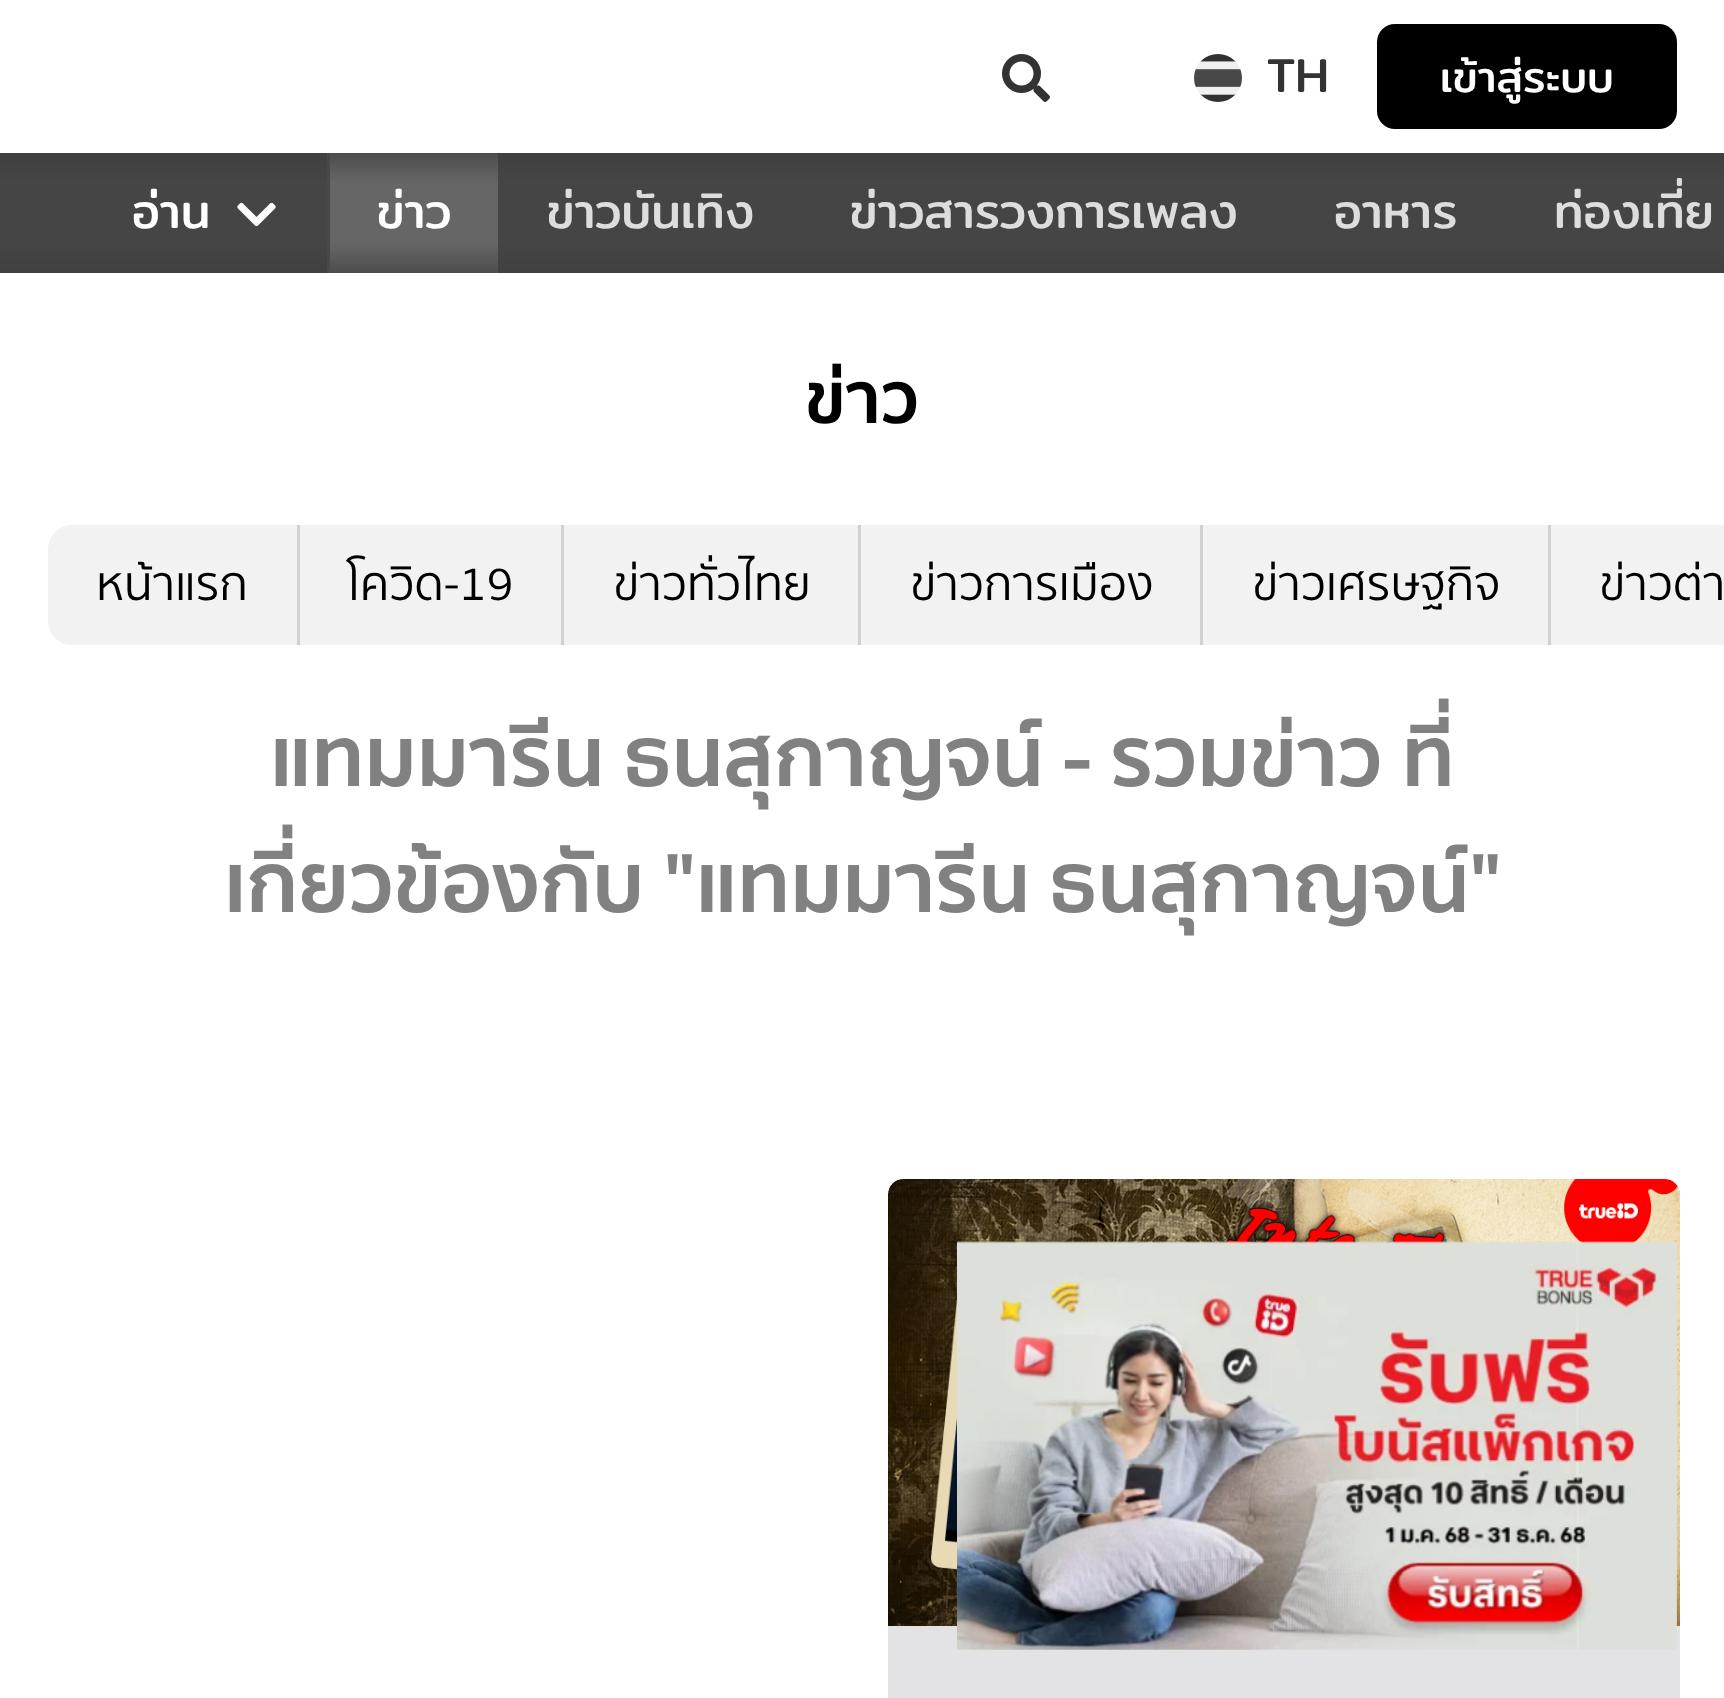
(async () => {
  const canvas = document.querySelector("canvas");
  canvas.width = 1724;
  canvas.height = 1698;
  const ctx = canvas.getContext("2d");
  ctx.miterLimit = 4;
  ctx.fontKerning = "normal";
  async function loadImage(src) {
    const img = new Image();
    img.src = src;
    await img.decode();
    return img;
  }
  let gradient;

  ctx.fillStyle = "#ffffff";
  ctx.fillRect(0, 0, 1724, 1698);
  ctx.drawImage(await loadImage("img/1.png"), 1002, 54, 48, 48);
  ctx.drawImage(await loadImage("img/2.png"), 1194, 54, 48, 48);
  ctx.fillStyle = "#000000";
  ctx.beginPath();
  ctx.roundRect(1377, 24, 300, 105, 18);
  ctx.fill();
  gradient = ctx.createLinearGradient(863, 273, 863, 153);
  gradient.addColorStop(0, "#404040");
  gradient.addColorStop(0.25, "#454545");
  gradient.addColorStop(0.75, "#454545");
  gradient.addColorStop(1, "#404040");
  ctx.fillStyle = gradient;
  ctx.fillRect(0, 153, 1724, 120);
  ctx.fillStyle = "#484848";
  ctx.fillRect(327, 153, 3, 120);
  ctx.drawImage(await loadImage("img/3.png"), 237, 202, 39, 25);
  gradient = ctx.createLinearGradient(414, 273, 414, 153);
  gradient.addColorStop(0, "#4d4d4d");
  gradient.addColorStop(0.25, "#666666");
  gradient.addColorStop(0.75, "#666666");
  gradient.addColorStop(1, "#4d4d4d");
  ctx.fillStyle = gradient;
  ctx.fillRect(330, 153, 168, 120);
  ctx.fillStyle = "#f2f2f2";
  ctx.beginPath();
  ctx.roundRect(48, 525, 249, 120, [24, 0, 0, 24]);
  ctx.fill();
  for (const [x, y, w, h, color] of [
    [300, 525, 261, 120, "#f2f2f2"],
    [297, 525, 3, 120, "#d1d1d1"],
    [564, 525, 294, 120, "#f2f2f2"],
    [561, 525, 3, 120, "#d1d1d1"],
    [861, 525, 339, 120, "#f2f2f2"],
    [858, 525, 3, 120, "#d1d1d1"],
    [1203, 525, 345, 120, "#f2f2f2"],
    [1200, 525, 3, 120, "#d1d1d1"],
    [1551, 525, 173, 120, "#f2f2f2"],
    [1548, 525, 3, 120, "#d1d1d1"],
  ]) {
    ctx.fillStyle = color;
    ctx.fillRect(x, y, w, h);
  }
  ctx.fillStyle = "#e3e3e6";
  ctx.beginPath();
  ctx.roundRect(888, 1179, 792, 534, 15);
  ctx.fill();
  ctx.drawImage(await loadImage("img/4.png"), 888, 1179, 792, 447);
  ctx.drawImage(await loadImage("img/5.png"), 957, 1241, 720, 409);
  ctx.font = "48px Mitr";
  ctx.fillStyle = "#333333";
  ctx.fillText("TH", 1267, 92);
  ctx.font = "43px Mitr";
  ctx.fillStyle = "#ffffff";
  ctx.fillText("เข้าสู่ระบบ", 1440, 92);
  ctx.font = "48px Mitr";
  ctx.fillText("อ่าน", 132, 228);
  ctx.fillText("ข่าว", 377, 228);
  ctx.fillStyle = "#dddddd";
  for (const [text, x, y] of [
    ["ข่าวบันเทิง", 547, 228],
    ["ข่าวสารวงการเพลง", 850, 228],
    ["อาหาร", 1334, 228],
    ["ท่องเที่ย", 1554, 228],
  ]) {
    ctx.fillText(text, x, y);
  }
  ctx.font = "bold 72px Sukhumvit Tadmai";
  ctx.fillStyle = "#000000";
  ctx.fillText("ข่าว", 805, 423);
  ctx.font = "48px Sukhumvit Tadmai";
  for (const [text, x, y] of [
    ["หน้าแรก", 96, 600],
    ["โควิด-19", 347, 600],
    ["ข่าวทั่วไทย", 613, 600],
    ["ข่าวการเมือง", 910, 600],
    ["ข่าวเศรษฐกิจ", 1252, 600],
    ["ข่าวต่า", 1599, 600],
  ]) {
    ctx.fillText(text, x, y);
  }
  ctx.font = "bold 84px Sukhumvit Tadmai";
  ctx.fillStyle = "#818181";
  ctx.fillText("แทมมารีน ธนสุกาญจน์ - รวมข่าว ที่", 270, 786);
  ctx.fillText("เกี่ยวข้องกับ \"แทมมารีน ธนสุกาญจน์\"", 224, 912);
})();
